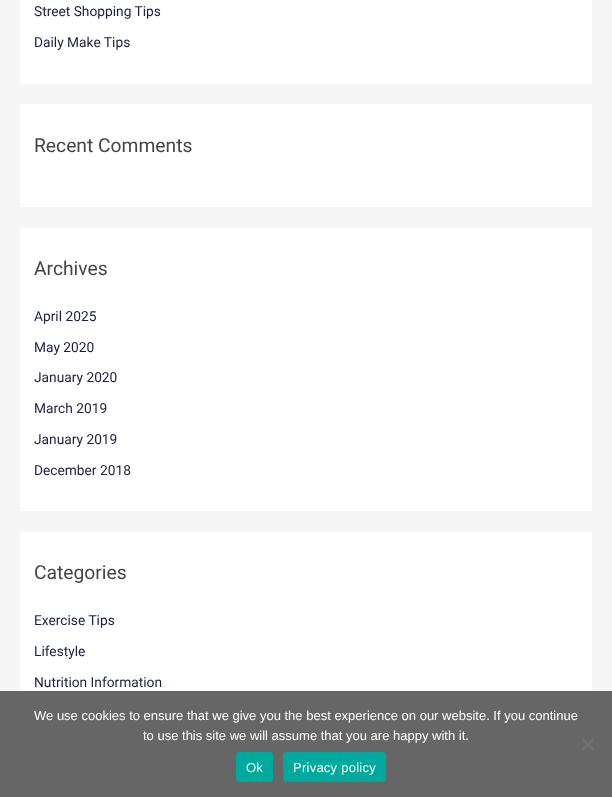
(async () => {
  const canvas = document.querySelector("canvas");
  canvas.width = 612;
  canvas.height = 797;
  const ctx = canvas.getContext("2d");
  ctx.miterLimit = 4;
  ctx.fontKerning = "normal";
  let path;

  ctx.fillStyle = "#f5f5f5";
  ctx.fillRect(0, 0, 612, 797);
  for (const [x, y, w, h, color] of [
    [20, 0, 572, 84, "#ffffff"],
    [20, 104, 572, 103, "#ffffff"],
    [20, 228, 572, 283, "#ffffff"],
    [20, 532, 572, 159, "#ffffff"],
    [0, 691, 612, 106, "#666666"],
  ]) {
    ctx.fillStyle = color;
    ctx.fillRect(x, y, w, h);
  }
  ctx.fillStyle = "#737373";
  path = new Path2D("M592.5 738.5L594 740L583.5 750.5L582 749Z");
  ctx.fill(path);
  path = new Path2D("M582 740L583.5 738.5L594 749L592.5 750.5Z");
  ctx.fill(path);
  ctx.fillStyle = "#00a99d";
  ctx.beginPath();
  ctx.roundRect(236, 752, 37, 30, 3);
  ctx.fill();
  ctx.beginPath();
  ctx.roundRect(283, 752, 103, 30, 3);
  ctx.fill();
  ctx.font = "13.75px Roboto";
  ctx.fillStyle = "#1a2041";
  ctx.fillText("Street Shopping Tips", 34, 16);
  ctx.fillText("Daily Make Tips", 34, 47);
  ctx.font = "19.25px Roboto";
  ctx.fillStyle = "#454545";
  ctx.fillText("Recent Comments", 34, 152);
  ctx.fillText("Archives", 34, 275);
  ctx.font = "13.75px Roboto";
  ctx.fillStyle = "#1a2041";
  for (const [text, x, y] of [
    ["April 2025", 34, 321],
    ["May 2020", 34, 352],
    ["January 2020", 34, 382],
    ["March 2019", 34, 413],
    ["January 2019", 34, 444],
    ["December 2018", 34, 475],
  ]) {
    ctx.fillText(text, x, y);
  }
  ctx.font = "19.25px Roboto";
  ctx.fillStyle = "#454545";
  ctx.fillText("Categories", 34, 579);
  ctx.font = "13.75px Roboto";
  ctx.fillStyle = "#1a2041";
  for (const [text, x, y] of [
    ["Exercise Tips", 34, 625],
    ["Lifestyle", 34, 656],
    ["Nutrition Information", 34, 687],
  ]) {
    ctx.fillText(text, x, y);
  }
  ctx.font = "13px Liberation Sans";
  ctx.fillStyle = "#ffffff";
  ctx.fillText("We use cookies to ensure that we give you the best experience on our website. If you continue", 34, 720);
  ctx.fillText("to use this site we will assume that you are happy with it.", 143, 740);
  ctx.letterSpacing = "0.25px";
  ctx.fillText("Ok", 246, 772);
  ctx.fillText("Privacy policy", 293, 772);
})();
